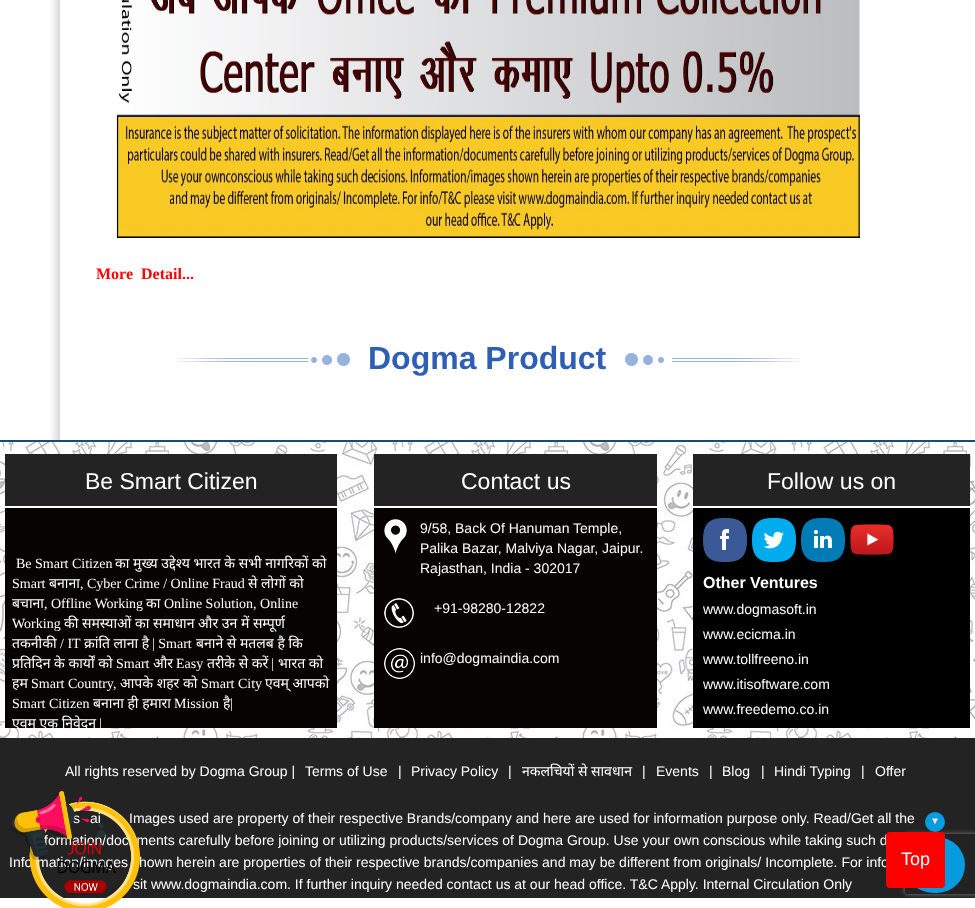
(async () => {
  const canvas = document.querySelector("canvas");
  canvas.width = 975;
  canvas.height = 908;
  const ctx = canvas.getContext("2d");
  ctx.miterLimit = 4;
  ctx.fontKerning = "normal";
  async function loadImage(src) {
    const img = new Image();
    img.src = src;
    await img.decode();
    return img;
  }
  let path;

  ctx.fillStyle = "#ffffff";
  ctx.fillRect(0, 0, 975, 908);
  ctx.drawImage(await loadImage("img/1.png"), 50, 0, 10, 440);
  ctx.drawImage(await loadImage("img/2.png"), 116, 0, 744, 238);
  ctx.drawImage(await loadImage("img/3.png"), 174, 353, 176, 13);
  ctx.drawImage(await loadImage("img/4.png"), 625, 353, 176, 13);
  ctx.drawImage(await loadImage("img/5.png"), 0, 442, 975, 296);
  for (const [x, y, w, h, color] of [
    [0, 440, 975, 2, "#1a4d6a"],
    [5, 454, 332, 52, "#232323"],
    [5, 506, 332, 2, "#ffffff"],
    [5, 508, 332, 220, "#060303"],
    [374, 454, 283, 52, "#232323"],
    [392, 506, 245, 2, "#ffffff"],
    [374, 508, 283, 220, "#070303"],
  ]) {
    ctx.fillStyle = color;
    ctx.fillRect(x, y, w, h);
  }
  ctx.drawImage(await loadImage("img/6.png"), 384, 519, 23, 35);
  ctx.drawImage(await loadImage("img/7.png"), 384, 598, 30, 30);
  ctx.drawImage(await loadImage("img/8.png"), 384, 648, 31, 31);
  for (const [x, y, w, h, color] of [
    [693, 454, 277, 52, "#232323"],
    [693, 506, 238, 2, "#ffffff"],
    [693, 508, 277, 220, "#000000"],
  ]) {
    ctx.fillStyle = color;
    ctx.fillRect(x, y, w, h);
  }
  ctx.drawImage(await loadImage("img/9.png"), 703, 518, 44, 44);
  ctx.drawImage(await loadImage("img/10.png"), 752, 518, 44, 44);
  ctx.drawImage(await loadImage("img/11.png"), 801, 518, 44, 44);
  ctx.drawImage(await loadImage("img/12.png"), 850, 524, 44, 31);
  ctx.fillStyle = "#232323";
  ctx.fillRect(0, 738, 975, 160);
  ctx.fillStyle = "#069cdf";
  ctx.beginPath();
  ctx.arc(935, 822, 10, 0, Math.PI * 2);
  ctx.fill();
  ctx.fillStyle = "rgba(3, 169, 244, 0.9)";
  ctx.beginPath();
  ctx.roundRect(905, 837, 60, 56, 28);
  ctx.fill();
  ctx.save();
  path = new Path2D("M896 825H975V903H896ZM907 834H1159C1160 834 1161 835 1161 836V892C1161 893 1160 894 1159 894H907C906 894 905 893 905 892V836C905 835 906 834 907 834Z");
  ctx.clip(path, "evenodd");
  ctx.fillStyle = "#808080";
  ctx.filter = "blur(2.5px)";
  ctx.beginPath();
  ctx.roundRect(905, 834, 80, 60, 2);
  ctx.fill();
  ctx.filter = "none";
  ctx.restore();
  ctx.wordSpacing = "4px";
  ctx.font = "bold 16px Liberation Serif";
  ctx.fillStyle = "#ff0000";
  ctx.fillText("More Detail", 96, 279);
  ctx.wordSpacing = "0px";
  ctx.fillText("...", 182, 279);
  ctx.font = "bold 32px Liberation Sans";
  ctx.fillStyle = "#2e5fb5";
  ctx.fillText("Dogma Product", 368, 369);
  ctx.font = "23px Liberation Sans";
  ctx.fillStyle = "#ffffff";
  ctx.fillText("Be Smart Citizen", 85, 489);
  ctx.font = "14px Liberation Serif";
  ctx.fillText("Be Smart Citizen", 16, 568);
  ctx.font = "14px Noto Sans";
  ctx.fillText("का मुख्य उद्देश्य भारत के सभी नागरिकों को", 115, 568);
  ctx.font = "14px Liberation Serif";
  ctx.fillText("Smart", 12, 588);
  ctx.font = "14px Noto Sans";
  ctx.fillText("बनाना", 49, 588);
  ctx.font = "14px Liberation Serif";
  ctx.fillText(", Cyber Crime / Online Fraud", 80, 588);
  ctx.font = "14px Noto Sans";
  ctx.fillText("से लोगों को", 248, 588);
  ctx.fillText("बचाना", 12, 608);
  ctx.font = "14px Liberation Serif";
  ctx.fillText(", Offline Working", 44, 608);
  ctx.font = "14px Noto Sans";
  ctx.fillText("का", 146, 608);
  ctx.font = "14px Liberation Serif";
  ctx.fillText("Online Solution, Online", 164, 608);
  ctx.fillText("Working", 12, 628);
  ctx.font = "14px Noto Sans";
  ctx.fillText("की समस्याओं का समाधान और उन में सम्पूर्ण", 64, 628);
  ctx.fillText("तकनीकी", 12, 648);
  ctx.font = "14px Liberation Serif";
  ctx.fillText("/ IT", 60, 648);
  ctx.font = "14px Noto Sans";
  ctx.fillText("क्रांति लाना है", 84, 648);
  ctx.font = "14px Liberation Serif";
  ctx.fillText("| Smart", 152, 648);
  ctx.font = "14px Noto Sans";
  ctx.fillText("बनाने से मतलब है कि", 196, 648);
  ctx.fillText("प्रतिदिन के कार्यों को", 12, 668);
  ctx.font = "14px Liberation Serif";
  ctx.fillText("Smart", 116, 668);
  ctx.font = "14px Noto Sans";
  ctx.fillText("और", 153, 668);
  ctx.font = "14px Liberation Serif";
  ctx.fillText("Easy", 176, 668);
  ctx.font = "14px Noto Sans";
  ctx.fillText("तरीके से करें", 207, 668);
  ctx.font = "14px Liberation Serif";
  ctx.fillText("|", 271, 668);
  ctx.font = "14px Noto Sans";
  ctx.fillText("भारत को", 278, 668);
  ctx.fillText("हम", 12, 688);
  ctx.font = "14px Liberation Serif";
  ctx.fillText("Smart Country,", 31, 688);
  ctx.font = "14px Noto Sans";
  ctx.fillText("आपके शहर को", 120, 688);
  ctx.font = "14px Liberation Serif";
  ctx.fillText("Smart City", 201, 688);
  ctx.font = "14px Noto Sans";
  ctx.fillText("एवम् आपको", 265, 688);
  ctx.font = "14px Liberation Serif";
  ctx.fillText("Smart Citizen", 12, 708);
  ctx.font = "14px Noto Sans";
  ctx.fillText("बनाना ही हमारा", 93, 708);
  ctx.font = "14px Liberation Serif";
  ctx.fillText("Mission", 174, 708);
  ctx.font = "14px Noto Sans";
  ctx.fillText("है", 223, 708);
  ctx.font = "14px Liberation Serif";
  ctx.fillText("|", 230, 708);
  ctx.save();
  ctx.beginPath();
  ctx.rect(12, 515, 318, 213);
  ctx.clip();
  ctx.font = "14px Noto Sans";
  ctx.fillText("एवम् एक निवेदन", 12, 728);
  ctx.font = "14px Liberation Serif";
  ctx.fillText("|", 99, 728);
  ctx.restore();
  ctx.font = "23px Liberation Sans";
  ctx.fillText("Contact us", 461, 489);
  ctx.font = "14px Liberation Sans";
  for (const [text, x, y] of [
    ["9/58, Back Of Hanuman Temple,", 420, 533],
    ["Palika Bazar, Malviya Nagar, Jaipur.", 420, 553],
    ["Rajasthan, India - 302017", 420, 573],
    ["+91-98280-12822", 434, 613],
    ["info@dogmaindia.com", 420, 663],
  ]) {
    ctx.fillText(text, x, y);
  }
  ctx.font = "23px Liberation Sans";
  ctx.fillText("Follow us on", 767, 489);
  ctx.font = "bold 16px Liberation Sans";
  ctx.fillText("Other Ventures", 703, 588);
  ctx.font = "14px Liberation Sans";
  for (const [text, x, y] of [
    ["www.dogmasoft.in", 703, 614],
    ["www.ecicma.in", 703, 639],
    ["www.tollfreeno.in", 703, 664],
    ["www.itisoftware.com", 703, 689],
    ["www.freedemo.co.in", 703, 714],
    ["All rights reserved by Dogma Group |", 65, 776],
    ["Terms of Use", 305, 776],
    ["|", 398, 776],
    ["Privacy Policy", 411, 776],
    ["|", 508, 776],
  ]) {
    ctx.fillText(text, x, y);
  }
  ctx.font = "14px Noto Sans";
  ctx.fillText("नकलचियों से सावधान", 522, 776);
  ctx.font = "14px Liberation Sans";
  for (const [text, x, y] of [
    ["|", 642, 776],
    ["Events", 656, 776],
    ["|", 709, 776],
    ["Blog", 722, 776],
    ["|", 761, 776],
    ["Hindi Typing", 774, 776],
    ["|", 861, 776],
    ["Offer", 875, 776],
    ["s", 73, 823],
    ["ai", 90, 823],
    ["Images used are property of their respective Brands/company and here are used for information purpose only. Read/Get all the", 129, 823],
    ["formation/documents carefully before joining or utilizing products/services of Dogma Group. Use your own conscious while taking such d", 44, 845],
    ["Information/images shown herein are properties of their respective brands/companies and may be different from originals/ Incomplete. For info", 9, 867],
    ["sit www.dogmaindia.com. If further inquiry needed contact us at our head office. T&C Apply. Internal Circulation Only", 133, 889],
  ]) {
    ctx.fillText(text, x, y);
  }
  ctx.drawImage(await loadImage("img/13.png"), 10, 791, 130, 117);
  ctx.font = "10px Liberation Mono";
  ctx.fillStyle = "#e9e9e9";
  ctx.fillText("▼", 932, 824);
  ctx.fillStyle = "#ff0000";
  ctx.beginPath();
  ctx.roundRect(886, 832, 59, 56, 4);
  ctx.fill();
  ctx.font = "18px Liberation Sans";
  ctx.fillStyle = "#ffffff";
  ctx.fillText("Top", 901, 865);
})();
